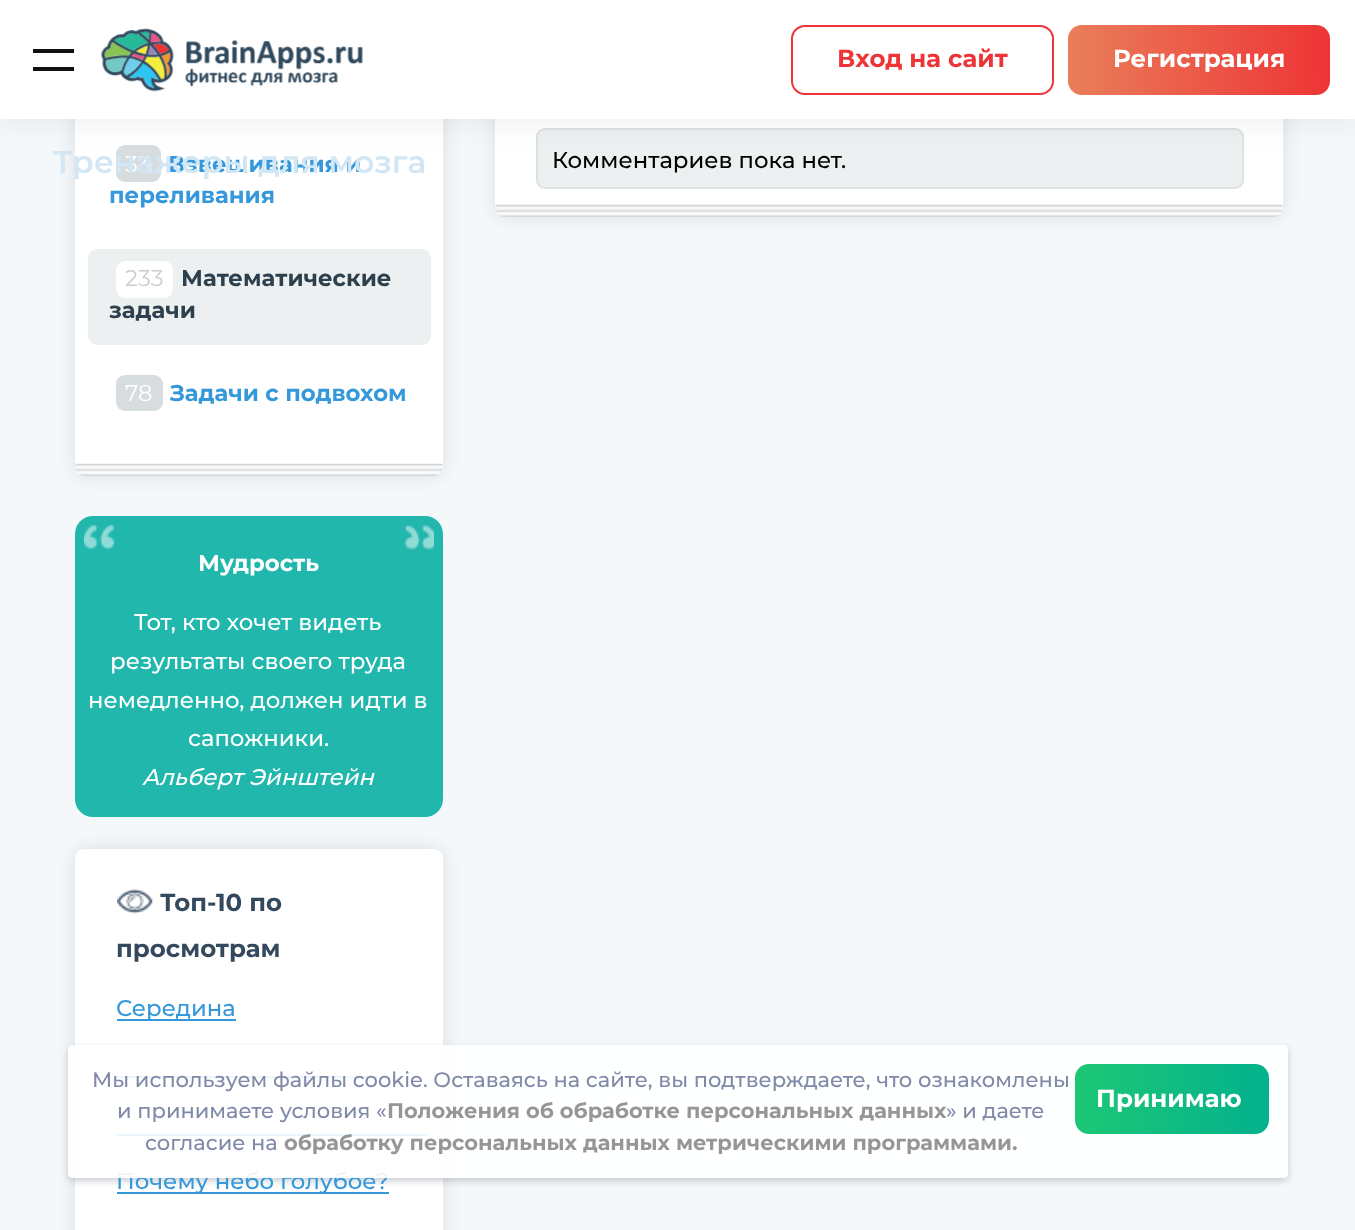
(async () => {
  const canvas = document.querySelector("canvas");
  canvas.width = 1355;
  canvas.height = 1230;
  const ctx = canvas.getContext("2d");
  ctx.miterLimit = 4;
  ctx.fontKerning = "normal";
  async function loadImage(src) {
    const img = new Image();
    img.src = src;
    await img.decode();
    return img;
  }
  let gradient, path;

  ctx.fillStyle = "#f5f8fa";
  ctx.fillRect(0, 0, 1355, 1230);
  ctx.fillStyle = "rgba(0, 0, 0, 0.1)";
  ctx.filter = "blur(9px)";
  ctx.beginPath();
  ctx.roundRect(75, -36, 368, 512, 9);
  ctx.fill();
  ctx.filter = "none";
  ctx.fillStyle = "#ffffff";
  ctx.beginPath();
  ctx.roundRect(75, -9, 368, 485, 9);
  ctx.fill();
  ctx.fillStyle = "#d7dcde";
  ctx.beginPath();
  ctx.roundRect(116, 145, 45, 37, 9);
  ctx.fill();
  ctx.fillStyle = "rgba(0, 0, 0, 0.1)";
  ctx.filter = "blur(9px)";
  ctx.beginPath();
  ctx.roundRect(495, -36, 788, 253, 9);
  ctx.fill();
  ctx.filter = "none";
  ctx.fillStyle = "#ffffff";
  ctx.beginPath();
  ctx.roundRect(495, -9, 788, 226, 9);
  ctx.fill();
  ctx.fillStyle = "#ecf0f1";
  ctx.beginPath();
  ctx.roundRect(536, 128, 708, 61, 9);
  ctx.fill();
  ctx.beginPath();
  ctx.roundRect(537, 129, 706, 59, 8);
  ctx.strokeStyle = "rgba(120, 130, 140, 0.13)";
  ctx.lineWidth = 2;
  ctx.stroke();
  ctx.fillStyle = "rgba(0, 0, 0, 0.05)";
  ctx.filter = "blur(13px)";
  ctx.beginPath();
  ctx.rect(0, 7, 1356, 119);
  ctx.fill();
  ctx.filter = "none";
  for (const [x, y, w, h, color] of [
    [0, 0, 1355, 119, "#ffffff"],
    [33, 49, 41, 4, "#111111"],
    [33, 67, 41, 4, "#111111"],
  ]) {
    ctx.fillStyle = color;
    ctx.fillRect(x, y, w, h);
  }
  ctx.drawImage(await loadImage("img/1.png"), 101, 28, 262, 64);
  ctx.beginPath();
  ctx.roundRect(792, 26, 261, 68, 13);
  ctx.strokeStyle = "#ee3436";
  ctx.stroke();
  gradient = ctx.createLinearGradient(1068, 60, 1330, 59);
  gradient.addColorStop(0, "#e97e5a");
  gradient.addColorStop(1, "#ee3436");
  ctx.fillStyle = gradient;
  ctx.beginPath();
  ctx.roundRect(1068, 25, 262, 70, 14);
  ctx.fill();
  ctx.drawImage(await loadImage("img/2.png"), 75, 463, 368, 13);
  ctx.fillStyle = "#ecf0f1";
  ctx.beginPath();
  ctx.roundRect(88, 249, 343, 96, 9);
  ctx.fill();
  ctx.fillStyle = "#ffffff";
  ctx.beginPath();
  ctx.roundRect(116, 261, 57, 37, 9);
  ctx.fill();
  ctx.fillStyle = "#d7dcde";
  ctx.beginPath();
  ctx.roundRect(116, 375, 47, 36, 9);
  ctx.fill();
  ctx.fillStyle = "#21b7ad";
  ctx.beginPath();
  ctx.roundRect(75, 516, 368, 301, 18);
  ctx.fill();
  ctx.drawImage(await loadImage("img/3.png"), 84, 525, 30, 25);
  ctx.drawImage(await loadImage("img/4.png"), 404, 525, 30, 25);
  ctx.fillStyle = "rgba(0, 0, 0, 0.1)";
  ctx.filter = "blur(9px)";
  ctx.beginPath();
  ctx.roundRect(75, 849, 368, 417, 9);
  ctx.fill();
  ctx.filter = "none";
  ctx.fillStyle = "#ffffff";
  ctx.beginPath();
  ctx.roundRect(75, 849, 368, 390, 9);
  ctx.fill();
  ctx.drawImage(await loadImage("img/5.png"), 117, 889, 36, 25);
  for (const [x, y, w, h, color] of [
    [117, 1019, 119, 2, "#3498db"],
    [117, 1076, 261, 2, "#3498db"],
    [117, 1134, 310, 2, "#3498db"],
    [117, 1192, 272, 2, "#3498db"],
  ]) {
    ctx.fillStyle = color;
    ctx.fillRect(x, y, w, h);
  }
  ctx.drawImage(await loadImage("img/6.png"), 495, 204, 788, 13);
  ctx.save();
  path = new Path2D("M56 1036H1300V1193H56ZM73 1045H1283C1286 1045 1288 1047 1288 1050V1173C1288 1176 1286 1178 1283 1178H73C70 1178 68 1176 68 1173V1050C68 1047 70 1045 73 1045Z");
  ctx.clip(path, "evenodd");
  ctx.fillStyle = "rgba(85, 92, 106, 0.3)";
  ctx.filter = "blur(3.5px)";
  ctx.beginPath();
  ctx.roundRect(68, 1048, 1220, 133, 5);
  ctx.fill();
  ctx.filter = "none";
  ctx.restore();
  ctx.font = "bold 24.5px Montserrat";
  ctx.fillStyle = "#ee3436";
  ctx.fillText("Вход на сайт", 837, 67);
  ctx.fillStyle = "#ffffff";
  ctx.fillText("Регистрация", 1113, 67);
  ctx.font = "22.75px Montserrat";
  ctx.fillText("33", 125, 172);
  ctx.font = "bold 22.75px Montserrat";
  ctx.fillStyle = "#3498db";
  ctx.fillText("Взвешивания и", 168, 172);
  ctx.font = "600 31.5px Montserrat";
  ctx.fillStyle = "#d2e6f4";
  ctx.fillText("Тренажеры для мозга", 53, 173);
  ctx.font = "bold 22.75px Montserrat";
  ctx.fillStyle = "#3498db";
  ctx.fillText("переливания", 109, 203);
  ctx.font = "22.75px Montserrat";
  ctx.fillStyle = "#cbced0";
  ctx.fillText("233", 125, 286);
  ctx.font = "bold 22.75px Montserrat";
  ctx.fillStyle = "#2e404d";
  ctx.fillText("Математические", 181, 286);
  ctx.fillText("задачи", 109, 318);
  ctx.font = "22.75px Montserrat";
  ctx.fillStyle = "#ffffff";
  ctx.fillText("78", 125, 401);
  ctx.font = "bold 22.75px Montserrat";
  ctx.fillStyle = "#3498db";
  ctx.fillText("Задачи с подвохом", 170, 401);
  ctx.fillStyle = "#ffffff";
  ctx.fillText("Мудрость", 198, 571);
  ctx.font = "500 22.75px Montserrat";
  for (const [text, x, y] of [
    ["Тот, кто хочет видеть", 134, 630],
    ["результаты своего труда", 110, 669],
    ["немедленно, должен идти в", 88, 708],
    ["сапожники.", 188, 746],
  ]) {
    ctx.fillText(text, x, y);
  }
  ctx.font = "italic 500 22.75px Montserrat";
  ctx.fillText("Альберт Эйнштейн", 142, 785);
  ctx.font = "bold 24.5px Montserrat";
  ctx.fillStyle = "#34495e";
  ctx.fillText("Топ-10 по", 160, 911);
  ctx.fillText("просмотрам", 116, 957);
  ctx.font = "500 22.75px Montserrat";
  ctx.fillStyle = "#3498db";
  ctx.fillText("Середина", 116, 1016);
  ctx.fillText("Почему небо голубое?", 116, 1189);
  ctx.fillStyle = "#000000";
  ctx.fillText("Комментариев пока нет.", 552, 168);
  ctx.fillStyle = "rgba(255, 255, 255, 0.9)";
  ctx.beginPath();
  ctx.roundRect(68, 1045, 1220, 133, 5);
  ctx.fill();
  ctx.font = "500 21px Montserrat";
  ctx.fillStyle = "#8189a9";
  ctx.fillText("Мы используем файлы cookie. Оставаясь на сайте, вы подтверждаете, что ознакомлены", 92, 1087);
  ctx.fillText("и принимаете условия «", 117, 1118);
  ctx.font = "bold 21px Montserrat";
  ctx.fillStyle = "#969696";
  ctx.fillText("Положения об обработке персональных данных", 387, 1118);
  ctx.font = "500 21px Montserrat";
  ctx.fillStyle = "#8189a9";
  ctx.fillText("» и даете", 946, 1118);
  ctx.fillText("согласие на", 145, 1150);
  ctx.font = "bold 21px Montserrat";
  ctx.fillStyle = "#969696";
  ctx.fillText("обработку персональных данных метрическими программами.", 284, 1150);
  gradient = ctx.createLinearGradient(1270, 1100, 1075, 1098);
  gradient.addColorStop(0, "#03b18d");
  gradient.addColorStop(1, "#1dc775");
  ctx.fillStyle = gradient;
  ctx.beginPath();
  ctx.roundRect(1075, 1064, 194, 70, 14);
  ctx.fill();
  ctx.font = "bold 24.5px Montserrat";
  ctx.fillStyle = "#ffffff";
  ctx.fillText("Принимаю", 1096, 1107);
})();
